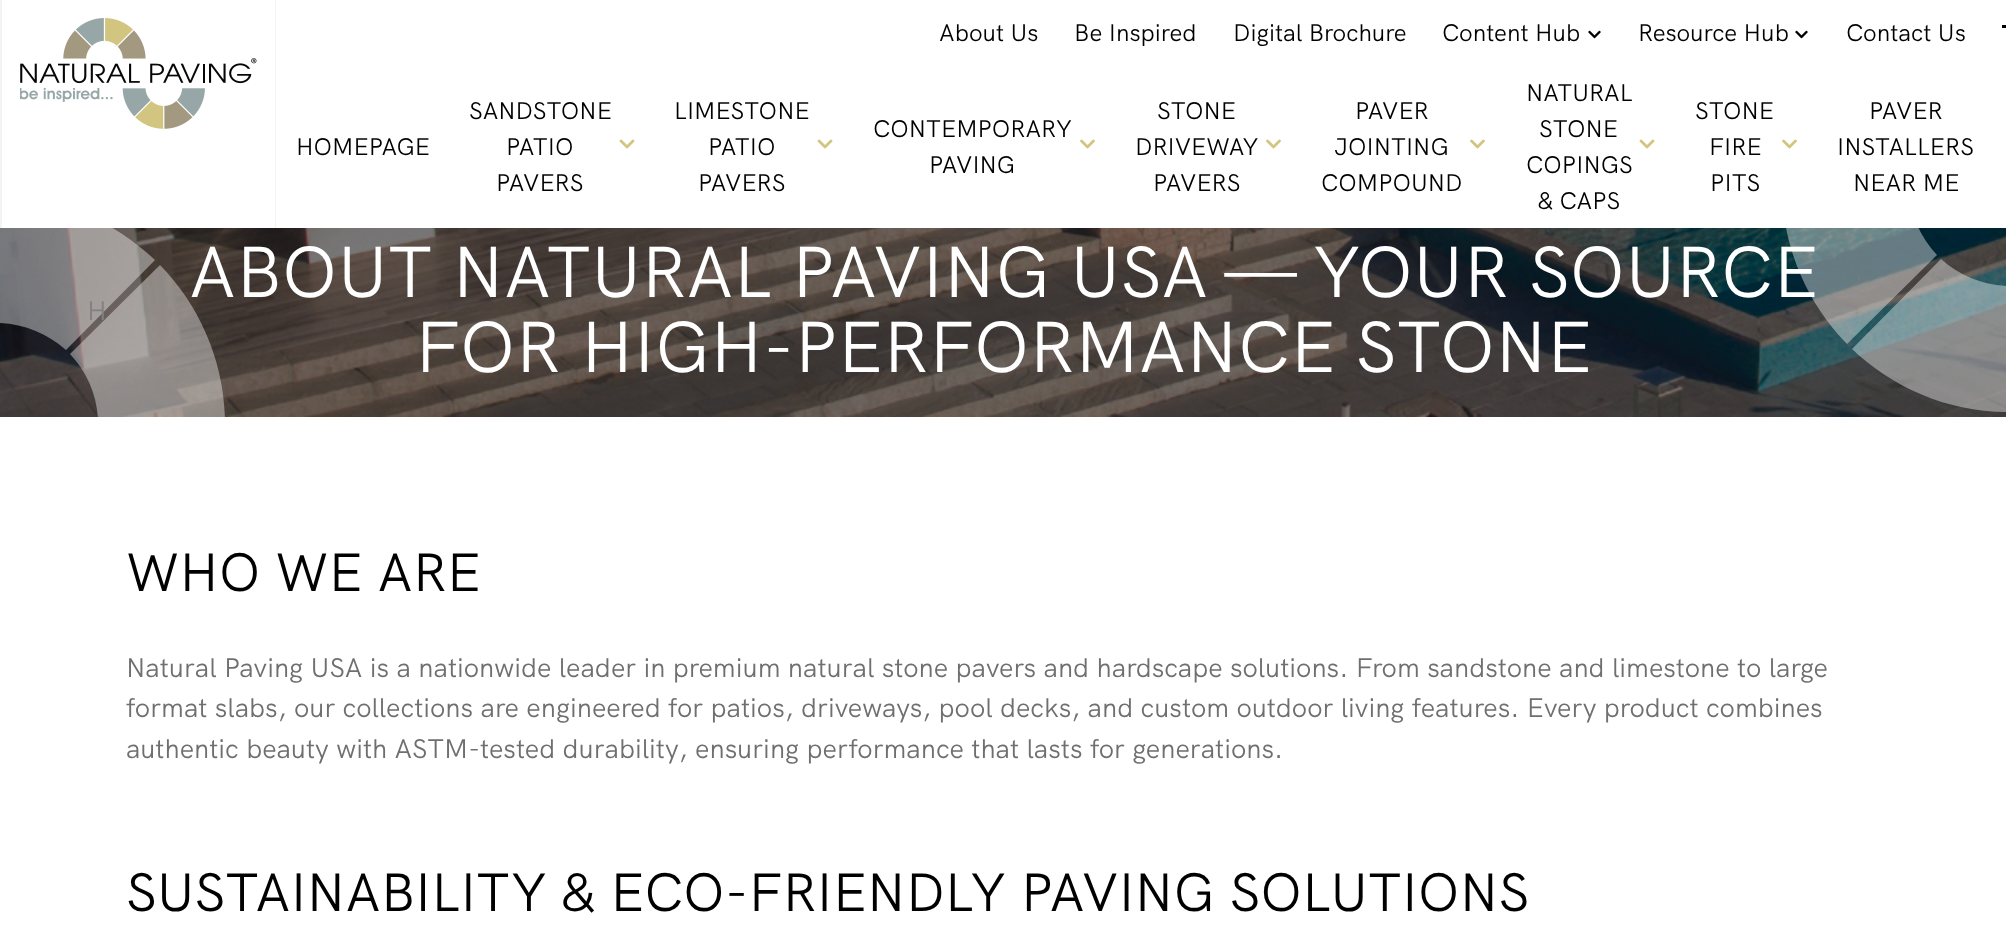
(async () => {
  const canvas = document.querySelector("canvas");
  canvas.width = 2006;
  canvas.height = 946;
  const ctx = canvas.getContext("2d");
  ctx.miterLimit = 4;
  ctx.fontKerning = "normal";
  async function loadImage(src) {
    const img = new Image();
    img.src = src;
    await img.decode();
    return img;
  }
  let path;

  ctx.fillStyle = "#ffffff";
  ctx.fillRect(0, 0, 2006, 946);
  ctx.fillStyle = "#f2f3f3";
  ctx.fillRect(275, 0, 1, 228);
  ctx.drawImage(await loadImage("img/5.png"), 0, 228, 2006, 189);
  ctx.fillStyle = "rgba(255, 255, 255, 0.4)";
  path = new Path2D("M66 350L155 260C115 222 60 197 0 196V323C25 324 48 334 66 350Z");
  ctx.fill(path);
  ctx.fillStyle = "#f2f3f3";
  ctx.fillRect(0, 0, 2, 228);
  ctx.drawImage(await loadImage("img/1.png"), 20, 18, 237, 111);
  ctx.drawImage(await loadImage("img/2.png"), 1588, 30, 13, 9);
  ctx.drawImage(await loadImage("img/2.png"), 1795, 30, 13, 9);
  ctx.fillStyle = "#000000";
  ctx.fillRect(2002, 25, 4, 3);
  ctx.drawImage(await loadImage("img/3.png"), 619, 139, 16, 10);
  ctx.drawImage(await loadImage("img/3.png"), 817, 139, 16, 10);
  ctx.drawImage(await loadImage("img/4.png"), 1080, 139, 15, 10);
  ctx.drawImage(await loadImage("img/4.png"), 1266, 139, 15, 10);
  ctx.drawImage(await loadImage("img/4.png"), 1470, 139, 15, 10);
  ctx.drawImage(await loadImage("img/3.png"), 1639, 139, 16, 10);
  ctx.drawImage(await loadImage("img/4.png"), 1782, 139, 15, 10);
  ctx.save();
  ctx.beginPath();
  ctx.rect(0, 197, 225, 220);
  ctx.clip();
  ctx.fillStyle = "rgba(255, 255, 255, 0.4)";
  path = new Path2D("M98 420H225C224 360 199 305 160 265L70 354C87 372 97 395 98 420Z");
  ctx.fill(path);
  ctx.restore();
  ctx.fillStyle = "rgba(255, 255, 255, 0.4)";
  path = new Path2D("M1941 259L1852 349C1892 387 1947 412 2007 412V286C1982 285 1959 275 1941 259Z");
  ctx.fill(path);
  path = new Path2D("M1909 189H1782C1783 249 1808 304 1847 344L1937 255C1920 237 1910 214 1909 189Z");
  ctx.fill(path);
  ctx.font = "24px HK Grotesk";
  ctx.fillStyle = "#000000";
  for (const [text, x, y] of [
    ["About Us", 939, 41],
    ["Be Inspired", 1074, 41],
    ["Digital Brochure", 1233, 41],
    ["Content Hub", 1442, 41],
    ["Resource Hub", 1638, 41],
    ["Contact Us", 1846, 41],
    ["HOMEPAGE", 296, 155],
    ["SANDSTONE", 469, 119],
    ["PATIO", 506, 155],
    ["PAVERS", 496, 191],
    ["LIMESTONE", 674, 119],
    ["PATIO", 708, 155],
    ["PAVERS", 698, 191],
    ["CONTEMPORARY", 873, 137],
    ["PAVING", 929, 173],
    ["STONE", 1157, 119],
    ["DRIVEWAY", 1135, 155],
    ["PAVERS", 1153, 191],
    ["PAVER", 1355, 119],
    ["JOINTING", 1334, 155],
    ["COMPOUND", 1321, 191],
    ["NATURAL", 1526, 101],
    ["STONE", 1539, 137],
    ["COPINGS", 1526, 173],
    ["& CAPS", 1537, 209],
    ["STONE", 1695, 119],
    ["FIRE", 1709, 155],
    ["PITS", 1710, 191],
    ["PAVER", 1869, 119],
    ["INSTALLERS", 1837, 155],
    ["NEAR ME", 1853, 191],
  ]) {
    ctx.fillText(text, x, y);
  }
  ctx.font = "27px HK Grotesk";
  ctx.fillStyle = "#828082";
  ctx.fillText("H", 87, 320);
  ctx.font = "72px HK Grotesk";
  ctx.fillStyle = "#ffffff";
  ctx.fillText("ABOUT NATURAL PAVING USA — YOUR SOURCE", 189, 297);
  ctx.fillText("FOR HIGH‑PERFORMANCE STONE", 415, 372);
  ctx.font = "54px HK Grotesk";
  ctx.fillStyle = "#000000";
  ctx.fillText("WHO WE ARE", 126, 591);
  ctx.font = "27px HK Grotesk";
  ctx.fillStyle = "#706f6f";
  for (const [text, x, y] of [
    ["Natural Paving USA is a nationwide leader in premium natural stone pavers and hardscape solutions. From sandstone and limestone to large", 126, 677],
    ["format slabs, our collections are engineered for patios, driveways, pool decks, and custom outdoor living features. Every product combines", 126, 717],
    ["authentic beauty with ASTM‑tested durability, ensuring performance that lasts for generations.", 126, 758],
  ]) {
    ctx.fillText(text, x, y);
  }
  ctx.font = "54px HK Grotesk";
  ctx.fillStyle = "#000000";
  ctx.fillText("SUSTAINABILITY & ECO‑FRIENDLY PAVING SOLUTIONS", 126, 911);
})();
